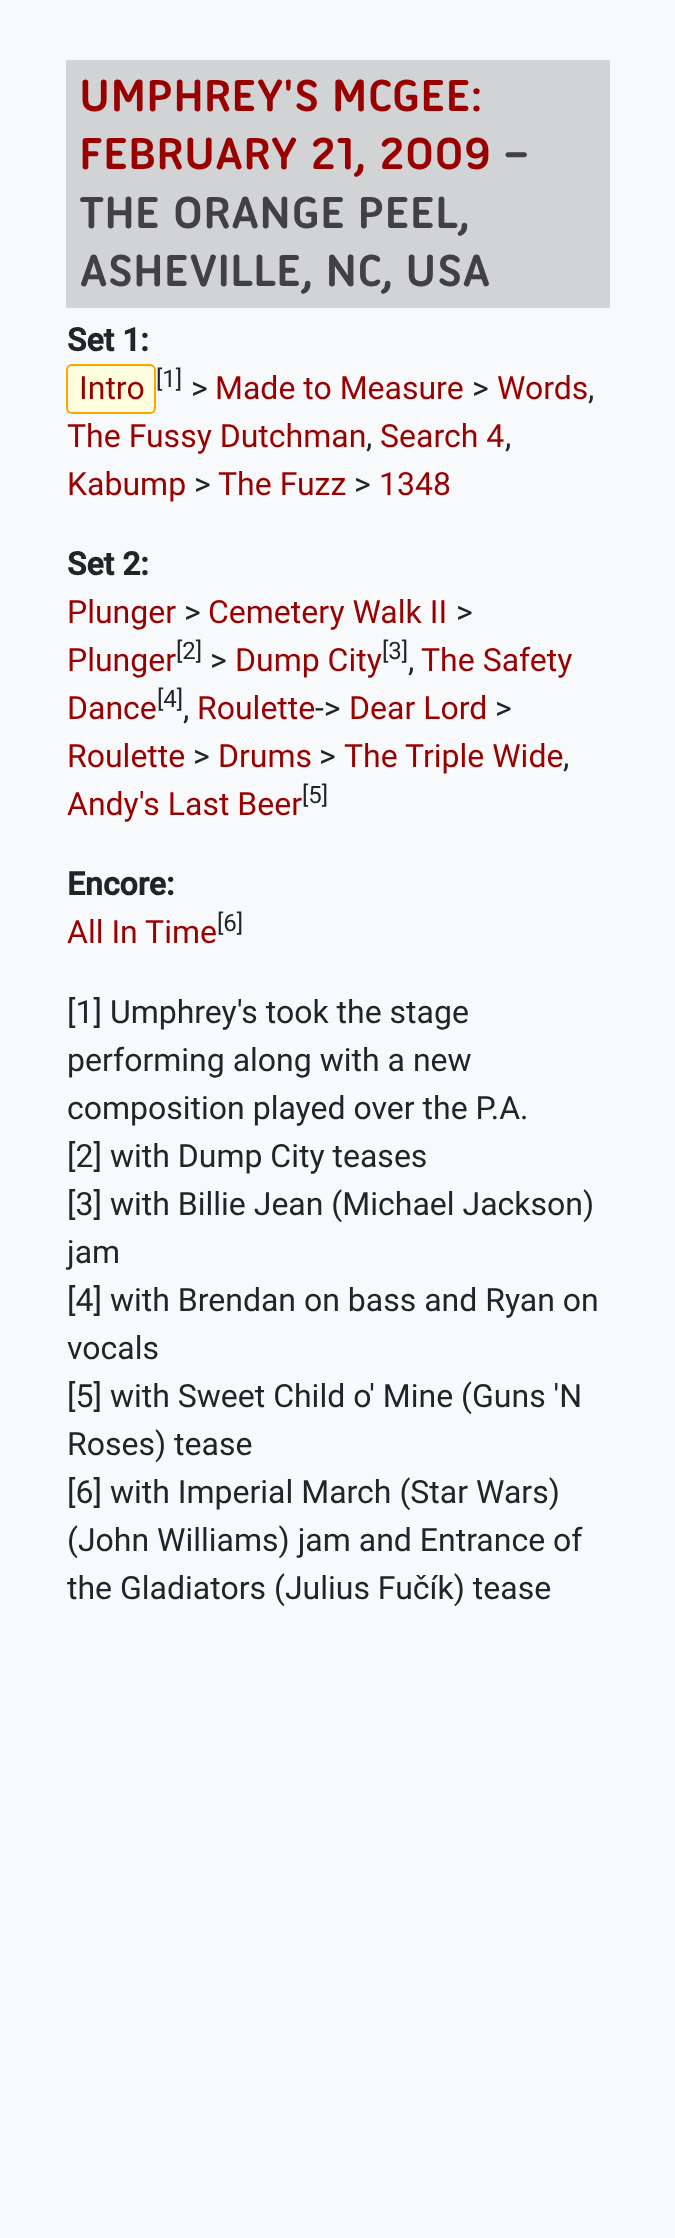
(async () => {
  const canvas = document.querySelector("canvas");
  canvas.width = 675;
  canvas.height = 2238;
  const ctx = canvas.getContext("2d");
  ctx.miterLimit = 4;
  ctx.fontKerning = "normal";

  ctx.fillStyle = "#f8f9fa";
  ctx.fillRect(0, 0, 675, 2238);
  ctx.fillStyle = "#d1d3d4";
  ctx.fillRect(66, 60, 544, 248);
  ctx.fillStyle = "#ffffe0";
  ctx.beginPath();
  ctx.roundRect(67, 365, 88, 48, 5);
  ctx.fill();
  ctx.strokeStyle = "#ffa500";
  ctx.lineWidth = 2;
  ctx.stroke();
  ctx.font = "bold 48.5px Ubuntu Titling";
  ctx.fillStyle = "#990000";
  ctx.fillText("UMPHREY'S MCGEE:", 79, 111);
  ctx.fillText("FEBRUARY 21, 2009", 79, 169);
  ctx.fillStyle = "#414042";
  for (const [text, x, y] of [
    ["–", 503, 169],
    ["THE ORANGE PEEL,", 79, 228],
    ["ASHEVILLE, NC, USA", 79, 286],
  ]) {
    ctx.fillText(text, x, y);
  }
  ctx.font = "bold 32px Roboto";
  ctx.fillStyle = "#212529";
  ctx.fillText("Set 1:", 67, 351);
  ctx.font = "32px Roboto";
  ctx.fillStyle = "#990000";
  ctx.fillText("Intro", 79, 399);
  ctx.font = "24px Roboto";
  ctx.fillStyle = "#212529";
  ctx.fillText("[1]", 156, 387);
  ctx.font = "32px Roboto";
  ctx.fillText(">", 191, 399);
  ctx.fillStyle = "#990000";
  ctx.fillText("Made to Measure", 215, 399);
  ctx.fillStyle = "#212529";
  ctx.fillText(">", 472, 399);
  ctx.fillStyle = "#990000";
  ctx.fillText("Words", 497, 399);
  ctx.fillStyle = "#212529";
  ctx.fillText(",", 588, 399);
  ctx.fillStyle = "#990000";
  ctx.fillText("The Fussy Dutchman", 67, 447);
  ctx.fillStyle = "#212529";
  ctx.fillText(",", 366, 447);
  ctx.fillStyle = "#990000";
  ctx.fillText("Search 4", 380, 447);
  ctx.fillStyle = "#212529";
  ctx.fillText(",", 505, 447);
  ctx.fillStyle = "#990000";
  ctx.fillText("Kabump", 67, 495);
  ctx.fillStyle = "#212529";
  ctx.fillText(">", 194, 495);
  ctx.fillStyle = "#990000";
  ctx.fillText("The Fuzz", 218, 495);
  ctx.fillStyle = "#212529";
  ctx.fillText(">", 354, 495);
  ctx.fillStyle = "#990000";
  ctx.fillText("1348", 379, 495);
  ctx.font = "bold 32px Roboto";
  ctx.fillStyle = "#212529";
  ctx.fillText("Set 2:", 67, 575);
  ctx.font = "32px Roboto";
  ctx.fillStyle = "#990000";
  ctx.fillText("Plunger", 67, 623);
  ctx.fillStyle = "#212529";
  ctx.fillText(">", 184, 623);
  ctx.fillStyle = "#990000";
  ctx.fillText("Cemetery Walk II", 208, 623);
  ctx.fillStyle = "#212529";
  ctx.fillText(">", 456, 623);
  ctx.fillStyle = "#990000";
  ctx.fillText("Plunger", 67, 671);
  ctx.font = "24px Roboto";
  ctx.fillStyle = "#212529";
  ctx.fillText("[2]", 176, 659);
  ctx.font = "32px Roboto";
  ctx.fillText(">", 210, 671);
  ctx.fillStyle = "#990000";
  ctx.fillText("Dump City", 235, 671);
  ctx.font = "24px Roboto";
  ctx.fillStyle = "#212529";
  ctx.fillText("[3]", 382, 659);
  ctx.font = "32px Roboto";
  ctx.fillStyle = "#990000";
  ctx.fillText("The Safety", 421, 671);
  ctx.fillStyle = "#212529";
  ctx.fillText(",", 408, 671);
  ctx.fillStyle = "#990000";
  ctx.fillText("Dance", 67, 719);
  ctx.font = "24px Roboto";
  ctx.fillStyle = "#212529";
  ctx.fillText("[4]", 157, 707);
  ctx.font = "32px Roboto";
  ctx.fillStyle = "#990000";
  ctx.fillText("Roulette", 197, 719);
  ctx.fillStyle = "#212529";
  ctx.fillText("->", 315, 719);
  ctx.fillStyle = "#990000";
  ctx.fillText("Dear Lord", 349, 719);
  ctx.fillStyle = "#212529";
  ctx.fillText(">", 495, 719);
  ctx.fillText(",", 183, 719);
  ctx.fillStyle = "#990000";
  ctx.fillText("Roulette", 67, 767);
  ctx.fillStyle = "#212529";
  ctx.fillText(">", 193, 767);
  ctx.fillStyle = "#990000";
  ctx.fillText("Drums", 218, 767);
  ctx.fillStyle = "#212529";
  ctx.fillText(">", 319, 767);
  ctx.fillStyle = "#990000";
  ctx.fillText("The Triple Wide", 344, 767);
  ctx.fillStyle = "#212529";
  ctx.fillText(",", 563, 767);
  ctx.fillStyle = "#990000";
  ctx.fillText("Andy's Last Beer", 67, 815);
  ctx.font = "24px Roboto";
  ctx.fillStyle = "#212529";
  ctx.fillText("[5]", 302, 803);
  ctx.font = "bold 32px Roboto";
  ctx.fillText("Encore:", 67, 895);
  ctx.font = "32px Roboto";
  ctx.fillStyle = "#990000";
  ctx.fillText("All In Time", 67, 943);
  ctx.font = "24px Roboto";
  ctx.fillStyle = "#212529";
  ctx.fillText("[6]", 217, 931);
  ctx.font = "32px Roboto";
  for (const [text, x, y] of [
    ["[1] Umphrey's took the stage", 67, 1023],
    ["performing along with a new", 67, 1071],
    ["composition played over the P.A.", 67, 1119],
    ["[2] with Dump City teases", 67, 1167],
    ["[3] with Billie Jean (Michael Jackson)", 67, 1215],
    ["jam", 67, 1263],
    ["[4] with Brendan on bass and Ryan on", 67, 1311],
    ["vocals", 67, 1359],
    ["[5] with Sweet Child o' Mine (Guns 'N", 67, 1407],
    ["Roses) tease", 67, 1455],
    ["[6] with Imperial March (Star Wars)", 67, 1503],
    ["(John Williams) jam and Entrance of", 67, 1551],
    ["the Gladiators (Julius Fučík) tease", 67, 1599],
  ]) {
    ctx.fillText(text, x, y);
  }
})();
